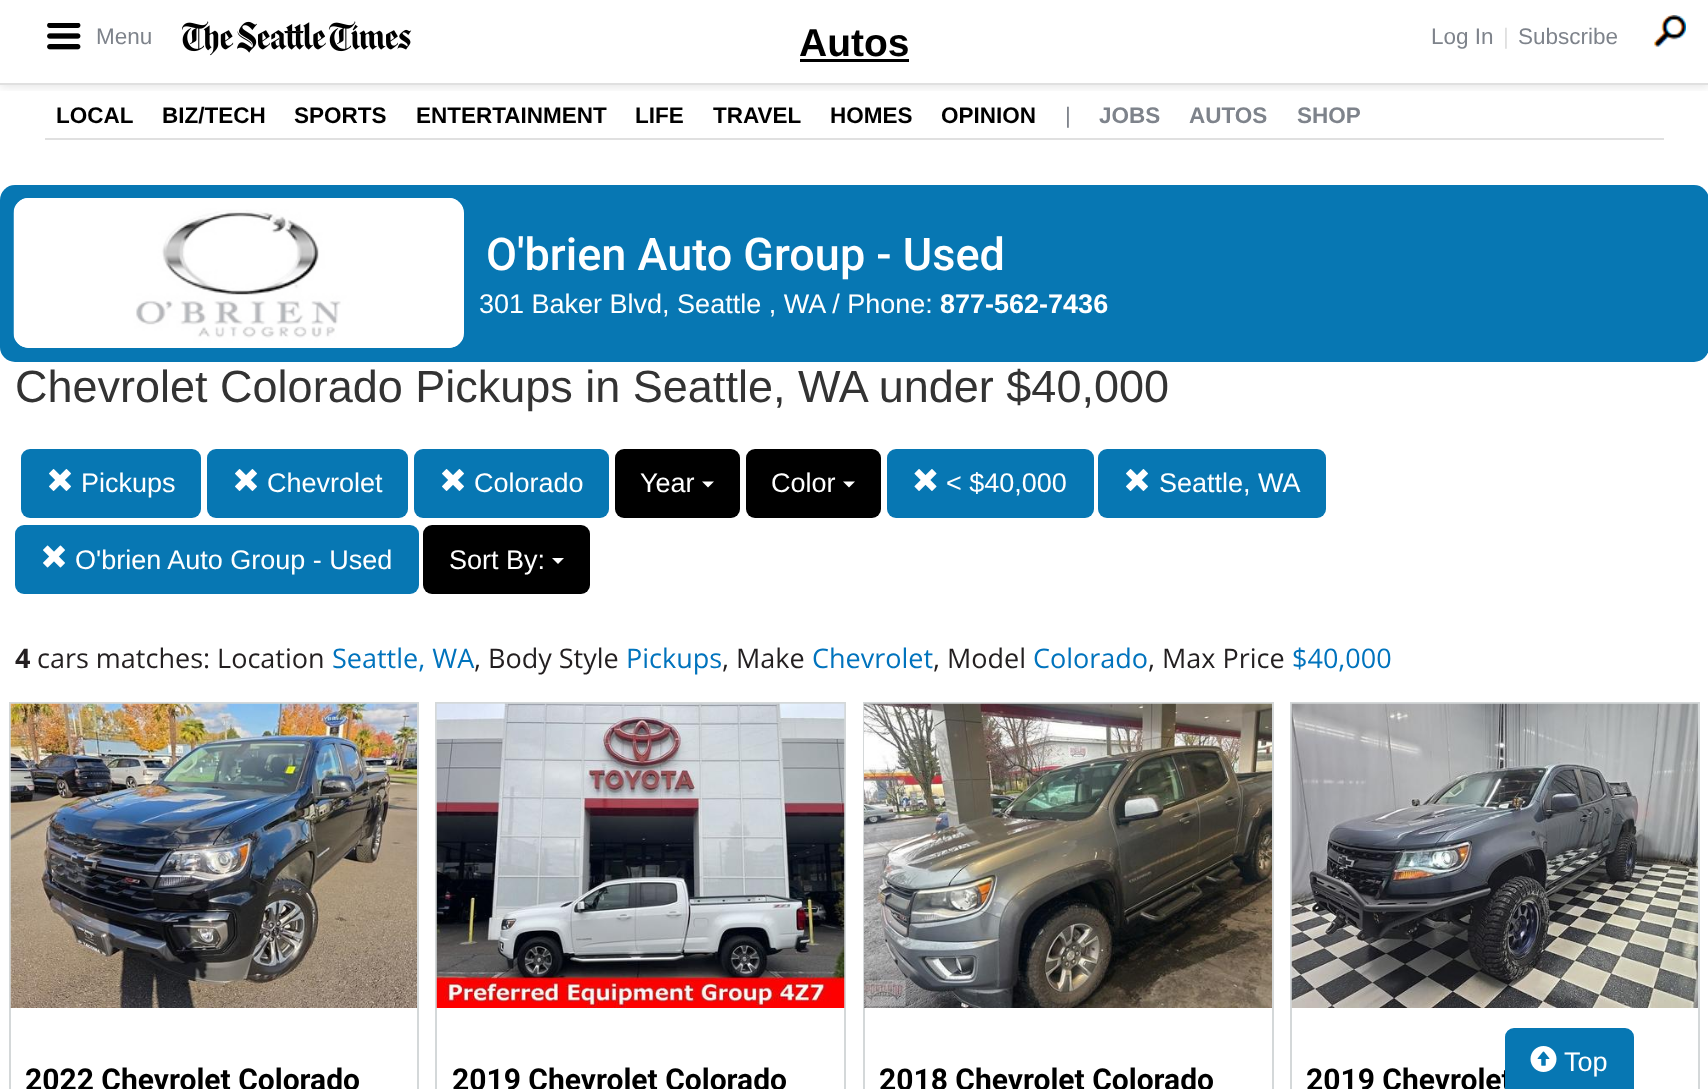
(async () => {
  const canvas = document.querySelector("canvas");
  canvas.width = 1708;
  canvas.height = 1089;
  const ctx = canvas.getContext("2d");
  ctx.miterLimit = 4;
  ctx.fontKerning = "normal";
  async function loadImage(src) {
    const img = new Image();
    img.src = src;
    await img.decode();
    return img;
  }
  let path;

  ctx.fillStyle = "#ffffff";
  ctx.fillRect(0, 0, 1708, 1089);
  ctx.save();
  ctx.beginPath();
  ctx.rect(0, 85, 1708, 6);
  ctx.clip();
  ctx.fillStyle = "rgba(0, 0, 0, 0.1)";
  ctx.filter = "blur(5px)";
  ctx.beginPath();
  ctx.rect(0, 3, 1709, 84);
  ctx.fill();
  ctx.filter = "none";
  ctx.restore();
  ctx.fillStyle = "#e0e0e0";
  ctx.fillRect(0, 83, 1708, 2);
  ctx.drawImage(await loadImage("img/1.png"), 47, 23, 34, 27);
  ctx.drawImage(await loadImage("img/2.png"), 182, 21, 230, 35);
  ctx.drawImage(await loadImage("img/3.png"), 1654, 15, 32, 32);
  ctx.fillStyle = "#000000";
  ctx.fillRect(800, 59, 109, 3);
  ctx.fillStyle = "#e0e0e0";
  ctx.fillRect(45, 138, 1619, 2);
  ctx.fillStyle = "#0777b3";
  ctx.beginPath();
  ctx.roundRect(0, 185, 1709, 177, 15);
  ctx.fill();
  ctx.fillStyle = "#ffffff";
  ctx.beginPath();
  ctx.roundRect(14, 198, 450, 150, 15);
  ctx.fill();
  ctx.drawImage(await loadImage("img/4.png"), 13, 198, 451, 150);
  ctx.fillStyle = "#0777b3";
  ctx.beginPath();
  ctx.roundRect(21, 449, 180, 69, 9);
  ctx.fill();
  ctx.drawImage(await loadImage("img/5.png"), 49, 469, 22, 22);
  ctx.beginPath();
  ctx.roundRect(207, 449, 201, 69, 9);
  ctx.fill();
  ctx.drawImage(await loadImage("img/5.png"), 235, 469, 22, 22);
  ctx.beginPath();
  ctx.roundRect(414, 449, 195, 69, 9);
  ctx.fill();
  ctx.drawImage(await loadImage("img/5.png"), 442, 469, 22, 22);
  ctx.fillStyle = "#000000";
  ctx.beginPath();
  ctx.roundRect(615, 449, 125, 69, 9);
  ctx.fill();
  ctx.fillStyle = "#ffffff";
  path = new Path2D("M702 481.5H714L708 487.5Z");
  ctx.fill(path);
  ctx.fillStyle = "#000000";
  ctx.beginPath();
  ctx.roundRect(746, 449, 135, 69, 9);
  ctx.fill();
  ctx.fillStyle = "#ffffff";
  path = new Path2D("M843 481.5H855L849 487.5Z");
  ctx.fill(path);
  ctx.fillStyle = "#0777b3";
  ctx.beginPath();
  ctx.roundRect(887, 449, 207, 69, 9);
  ctx.fill();
  ctx.drawImage(await loadImage("img/6.png"), 914, 469, 23, 22);
  ctx.beginPath();
  ctx.roundRect(1098, 449, 228, 69, 9);
  ctx.fill();
  ctx.drawImage(await loadImage("img/5.png"), 1126, 469, 22, 22);
  ctx.beginPath();
  ctx.roundRect(15, 525, 404, 69, 9);
  ctx.fill();
  ctx.drawImage(await loadImage("img/7.png"), 43, 545, 22, 23);
  ctx.fillStyle = "#000000";
  ctx.beginPath();
  ctx.roundRect(423, 525, 167, 69, 9);
  ctx.fill();
  ctx.fillStyle = "#ffffff";
  path = new Path2D("M552 558H564L558 564Z");
  ctx.fill(path);
  ctx.strokeStyle = "#d4d8d9";
  ctx.lineWidth = 2;
  ctx.strokeRect(10, 703, 408, 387);
  ctx.drawImage(await loadImage("img/8.png"), 10, 703, 407, 305);
  ctx.strokeRect(436, 703, 409, 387);
  ctx.drawImage(await loadImage("img/9.png"), 436, 703, 409, 305);
  ctx.strokeRect(864, 703, 409, 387);
  ctx.drawImage(await loadImage("img/10.png"), 864, 703, 408, 305);
  ctx.strokeRect(1291, 703, 408, 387);
  ctx.drawImage(await loadImage("img/11.png"), 1291, 703, 407, 305);
  ctx.font = "22.5px Liberation Sans";
  ctx.fillStyle = "#7e838b";
  ctx.fillText("Menu", 96, 44);
  ctx.fillText("Log In", 1431, 44);
  ctx.fillStyle = "#e0e0e0";
  ctx.fillText("|", 1503, 44);
  ctx.fillStyle = "#7e838b";
  ctx.fillText("Subscribe", 1518, 44);
  ctx.font = "bold 39px Liberation Sans";
  ctx.fillStyle = "#000000";
  ctx.fillText("Autos", 799, 56);
  ctx.font = "bold 22.5px Liberation Sans";
  for (const [text, x, y] of [
    ["LOCAL", 56, 123],
    ["BIZ/TECH", 162, 123],
    ["SPORTS", 294, 123],
    ["ENTERTAINMENT", 416, 123],
    ["LIFE", 635, 123],
    ["TRAVEL", 713, 123],
    ["HOMES", 830, 123],
    ["OPINION", 941, 123],
  ]) {
    ctx.fillText(text, x, y);
  }
  ctx.font = "22.5px Liberation Sans";
  ctx.fillStyle = "#7e838b";
  ctx.fillText("|", 1065, 123);
  ctx.font = "bold 22.5px Liberation Sans";
  for (const [text, x, y] of [
    ["JOBS", 1099, 123],
    ["AUTOS", 1189, 123],
    ["SHOP", 1297, 123],
  ]) {
    ctx.fillText(text, x, y);
  }
  ctx.font = "500 45px Roboto";
  ctx.fillStyle = "#ffffff";
  ctx.fillText("O'brien Auto Group - Used", 486, 270);
  ctx.font = "27px Liberation Sans";
  ctx.fillText("301 Baker Blvd, Seattle , WA / Phone:", 479, 313);
  ctx.font = "bold 27px Liberation Sans";
  ctx.fillText("877-562-7436", 940, 313);
  ctx.font = "45px Liberation Sans";
  ctx.fillStyle = "#333333";
  ctx.fillText("Chevrolet Colorado Pickups in Seattle, WA under $40,000", 15, 402);
  ctx.font = "27px Liberation Sans";
  ctx.fillStyle = "#ffffff";
  for (const [text, x, y] of [
    ["Pickups", 81, 492],
    ["Chevrolet", 267, 492],
    ["Colorado", 474, 492],
    ["Year", 640, 492],
    ["Color", 771, 492],
    ["< $40,000", 946, 492],
    ["Seattle, WA", 1159, 492],
    ["O'brien Auto Group - Used", 75, 569],
    ["Sort By:", 449, 569],
  ]) {
    ctx.fillText(text, x, y);
  }
  ctx.font = "bold 27px Open Sans";
  ctx.fillStyle = "#231f20";
  ctx.fillText("4", 15, 668);
  ctx.font = "27px Open Sans";
  ctx.fillText("cars matches: Location", 37, 668);
  ctx.fillStyle = "#0073bd";
  ctx.fillText("Seattle, WA", 332, 668);
  ctx.fillStyle = "#231f20";
  ctx.fillText(", Body Style", 474, 668);
  ctx.fillStyle = "#0073bd";
  ctx.fillText("Pickups", 626, 668);
  ctx.fillStyle = "#231f20";
  ctx.fillText(", Make", 722, 668);
  ctx.fillStyle = "#0073bd";
  ctx.fillText("Chevrolet", 812, 668);
  ctx.fillStyle = "#231f20";
  ctx.fillText(", Model", 933, 668);
  ctx.fillStyle = "#0073bd";
  ctx.fillText("Colorado", 1033, 668);
  ctx.fillStyle = "#231f20";
  ctx.fillText(", Max Price", 1148, 668);
  ctx.fillStyle = "#0073bd";
  ctx.fillText("$40,000", 1292, 668);
  ctx.font = "bold 30px Roboto";
  ctx.fillStyle = "#000000";
  for (const [text, x, y] of [
    ["2022 Chevrolet Colorado", 25, 1090],
    ["2019 Chevrolet Colorado", 452, 1090],
    ["2018 Chevrolet Colorado", 879, 1090],
    ["2019 Chevrolet", 1306, 1090],
  ]) {
    ctx.fillText(text, x, y);
  }
  ctx.fillStyle = "#0777b3";
  ctx.beginPath();
  ctx.roundRect(1506, 1029, 127, 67, 8);
  ctx.fill();
  ctx.strokeStyle = "#0777b3";
  ctx.stroke();
  ctx.drawImage(await loadImage("img/12.png"), 1530, 1046, 27, 26);
  ctx.font = "27px Liberation Sans";
  ctx.fillStyle = "#ffffff";
  ctx.fillText("Top", 1564, 1071);
})();
